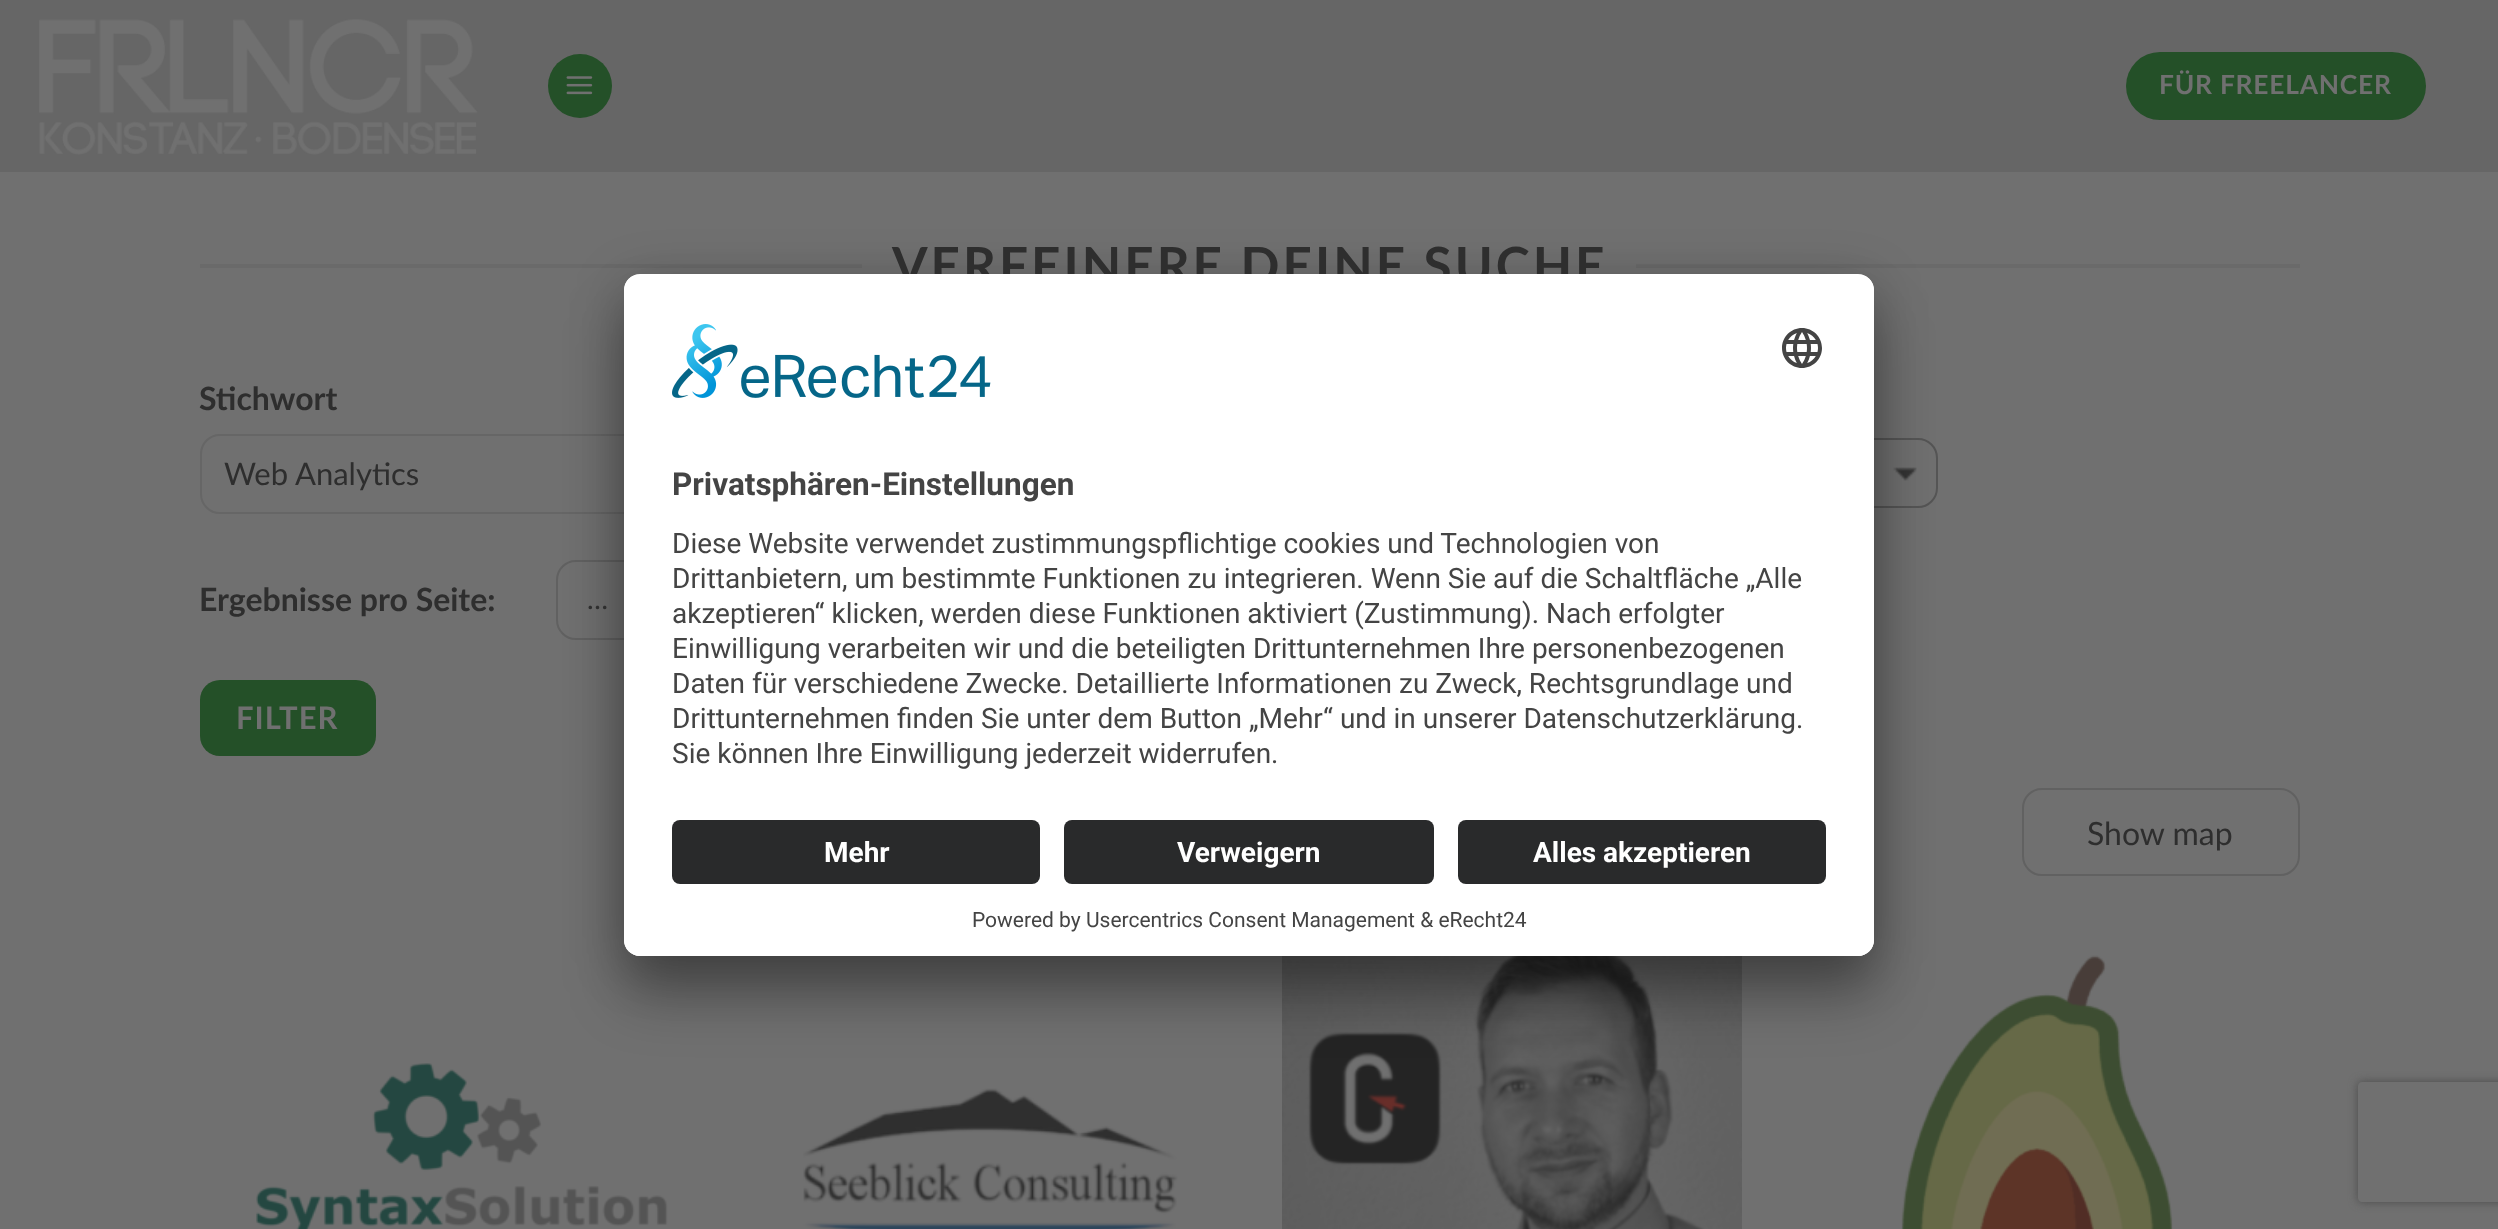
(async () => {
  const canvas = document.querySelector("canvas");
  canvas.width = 2498;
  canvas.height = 1229;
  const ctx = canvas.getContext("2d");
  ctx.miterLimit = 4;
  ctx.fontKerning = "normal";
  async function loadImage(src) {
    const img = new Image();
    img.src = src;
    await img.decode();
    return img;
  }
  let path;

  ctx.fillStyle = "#707070";
  ctx.fillRect(0, 0, 2498, 1229);
  ctx.fillStyle = "#666666";
  ctx.fillRect(0, 0, 2498, 172);
  ctx.drawImage(await loadImage("img/1.png"), 39, 19, 439, 136);
  ctx.fillStyle = "#245028";
  ctx.beginPath();
  ctx.arc(580, 86, 32, 0, Math.PI * 2);
  ctx.fill();
  ctx.drawImage(await loadImage("img/2.png"), 566, 76, 27, 19);
  ctx.beginPath();
  ctx.roundRect(2126, 52, 300, 68, 34);
  ctx.fill();
  ctx.fillStyle = "#6a6a6a";
  ctx.fillRect(200, 264, 662, 4);
  ctx.fillRect(1636, 264, 664, 4);
  ctx.beginPath();
  ctx.roundRect(201, 435, 596, 78, 19);
  ctx.strokeStyle = "#666666";
  ctx.lineWidth = 2;
  ctx.stroke();
  ctx.beginPath();
  ctx.roundRect(1639, 439, 298, 68, 19);
  ctx.strokeStyle = "#555555";
  ctx.stroke();
  ctx.drawImage(await loadImage("img/3.png"), 1893, 467, 24, 14);
  ctx.beginPath();
  ctx.roundRect(557, 561, 138, 78, 19);
  ctx.strokeStyle = "#616161";
  ctx.stroke();
  ctx.fillStyle = "#245028";
  ctx.beginPath();
  ctx.roundRect(200, 680, 176, 76, 20);
  ctx.fill();
  ctx.beginPath();
  ctx.roundRect(2023, 789, 276, 86, 19);
  ctx.stroke();
  ctx.drawImage(await loadImage("img/4.png"), 256, 1063, 412, 166);
  ctx.drawImage(await loadImage("img/5.png"), 803, 1088, 375, 141);
  ctx.drawImage(await loadImage("img/6.png"), 1282, 956, 460, 273);
  ctx.drawImage(await loadImage("img/7.png"), 1901, 955, 272, 274);
  ctx.fillStyle = "rgba(0, 0, 0, 0.3)";
  ctx.filter = "blur(28px)";
  ctx.beginPath();
  ctx.roundRect(624, 314, 1250, 682, 16);
  ctx.fill();
  ctx.filter = "none";
  ctx.fillStyle = "rgba(0, 0, 0, 0.22)";
  ctx.filter = "blur(26px)";
  ctx.beginPath();
  ctx.roundRect(624, 284, 1250, 682, 16);
  ctx.fill();
  ctx.filter = "none";
  ctx.save();
  path = new Path2D("M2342 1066H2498V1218H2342ZM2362 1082H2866C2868 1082 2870 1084 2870 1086V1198C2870 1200 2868 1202 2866 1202H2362C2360 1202 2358 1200 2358 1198V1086C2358 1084 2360 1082 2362 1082Z");
  ctx.clip(path, "evenodd");
  ctx.fillStyle = "#4a4a4a";
  ctx.filter = "blur(5px)";
  ctx.beginPath();
  ctx.roundRect(2358, 1082, 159, 120, 4);
  ctx.fill();
  ctx.filter = "none";
  ctx.restore();
  ctx.letterSpacing = "0.75px";
  ctx.font = "bold 26.4px Lato";
  ctx.fillStyle = "#707070";
  ctx.fillText("FÜR FREELANCER", 2159, 94);
  ctx.letterSpacing = "3px";
  ctx.font = "bold 51.25px Lato";
  ctx.fillStyle = "#2e2e2e";
  ctx.fillText("VERFEINERE DEINE SUCHE", 892, 284);
  ctx.letterSpacing = "0px";
  ctx.font = "bold 32px Lato";
  ctx.fillText("Stichwort", 199, 410);
  ctx.font = "31px Lato";
  ctx.fillText("Web Analytics", 224, 485);
  ctx.font = "bold 32px Lato";
  ctx.fillText("Ergebnisse pro Seite:", 199, 611);
  ctx.font = "28px Lato";
  ctx.fillText("…", 587, 609);
  ctx.letterSpacing = "1px";
  ctx.font = "bold 31px Lato";
  ctx.fillStyle = "#707070";
  ctx.fillText("FILTER", 236, 729);
  ctx.letterSpacing = "0px";
  ctx.font = "32px Lato";
  ctx.fillStyle = "#2e2e2e";
  ctx.fillText("Show map", 2087, 845);
  ctx.fillStyle = "#ffffff";
  ctx.beginPath();
  ctx.roundRect(624, 274, 1250, 682, 16);
  ctx.fill();
  ctx.save();
  ctx.beginPath();
  ctx.roundRect(624, 274, 1250, 682, 16);
  ctx.clip();
  ctx.beginPath();
  ctx.roundRect(624, 274, 1250, 530, [16, 16, 0, 0]);
  ctx.clip();
  ctx.fillRect(624, 276, 1250, 528);
  ctx.restore();
  ctx.drawImage(await loadImage("img/8.png"), 672, 324, 319, 74);
  ctx.drawImage(await loadImage("img/9.png"), 1782, 328, 40, 40);
  ctx.font = "bold 31.5px Roboto";
  ctx.fillStyle = "#444444";
  ctx.fillText("Privatsphären-Einstellungen", 672, 495);
  ctx.font = "28px Roboto";
  for (const [text, x, y] of [
    ["Diese Website verwendet zustimmungspflichtige cookies und Technologien von", 672, 553],
    ["Drittanbietern, um bestimmte Funktionen zu integrieren. Wenn Sie auf die Schaltfläche „Alle", 672, 588],
    ["akzeptieren“ klicken, werden diese Funktionen aktiviert (Zustimmung). Nach erfolgter", 672, 623],
    ["Einwilligung verarbeiten wir und die beteiligten Drittunternehmen Ihre personenbezogenen", 672, 658],
    ["Daten für verschiedene Zwecke. Detaillierte Informationen zu Zweck, Rechtsgrundlage und", 672, 693],
    ["Drittunternehmen finden Sie unter dem Button „Mehr“ und in unserer Datenschutzerklärung.", 672, 728],
    ["Sie können Ihre Einwilligung jederzeit widerrufen.", 672, 763],
  ]) {
    ctx.fillText(text, x, y);
  }
  ctx.fillStyle = "#ffffff";
  ctx.beginPath();
  ctx.roundRect(624, 804, 1250, 152, [0, 0, 16, 16]);
  ctx.fill();
  ctx.fillStyle = "#292a2b";
  ctx.beginPath();
  ctx.roundRect(672, 820, 368, 64, 8);
  ctx.fill();
  ctx.font = "bold 28px Roboto";
  ctx.fillStyle = "#ffffff";
  ctx.fillText("Mehr", 824, 862);
  ctx.fillStyle = "#292a2b";
  ctx.beginPath();
  ctx.roundRect(1064, 820, 370, 64, 8);
  ctx.fill();
  ctx.fillStyle = "#ffffff";
  ctx.fillText("Verweigern", 1177, 862);
  ctx.fillStyle = "#292a2b";
  ctx.beginPath();
  ctx.roundRect(1458, 820, 368, 64, 8);
  ctx.fill();
  ctx.fillStyle = "#ffffff";
  ctx.fillText("Alles akzeptieren", 1533, 862);
  ctx.font = "21px Roboto";
  ctx.fillStyle = "#444444";
  ctx.fillText("Powered by Usercentrics Consent Management & eRecht24", 972, 927);
})();
